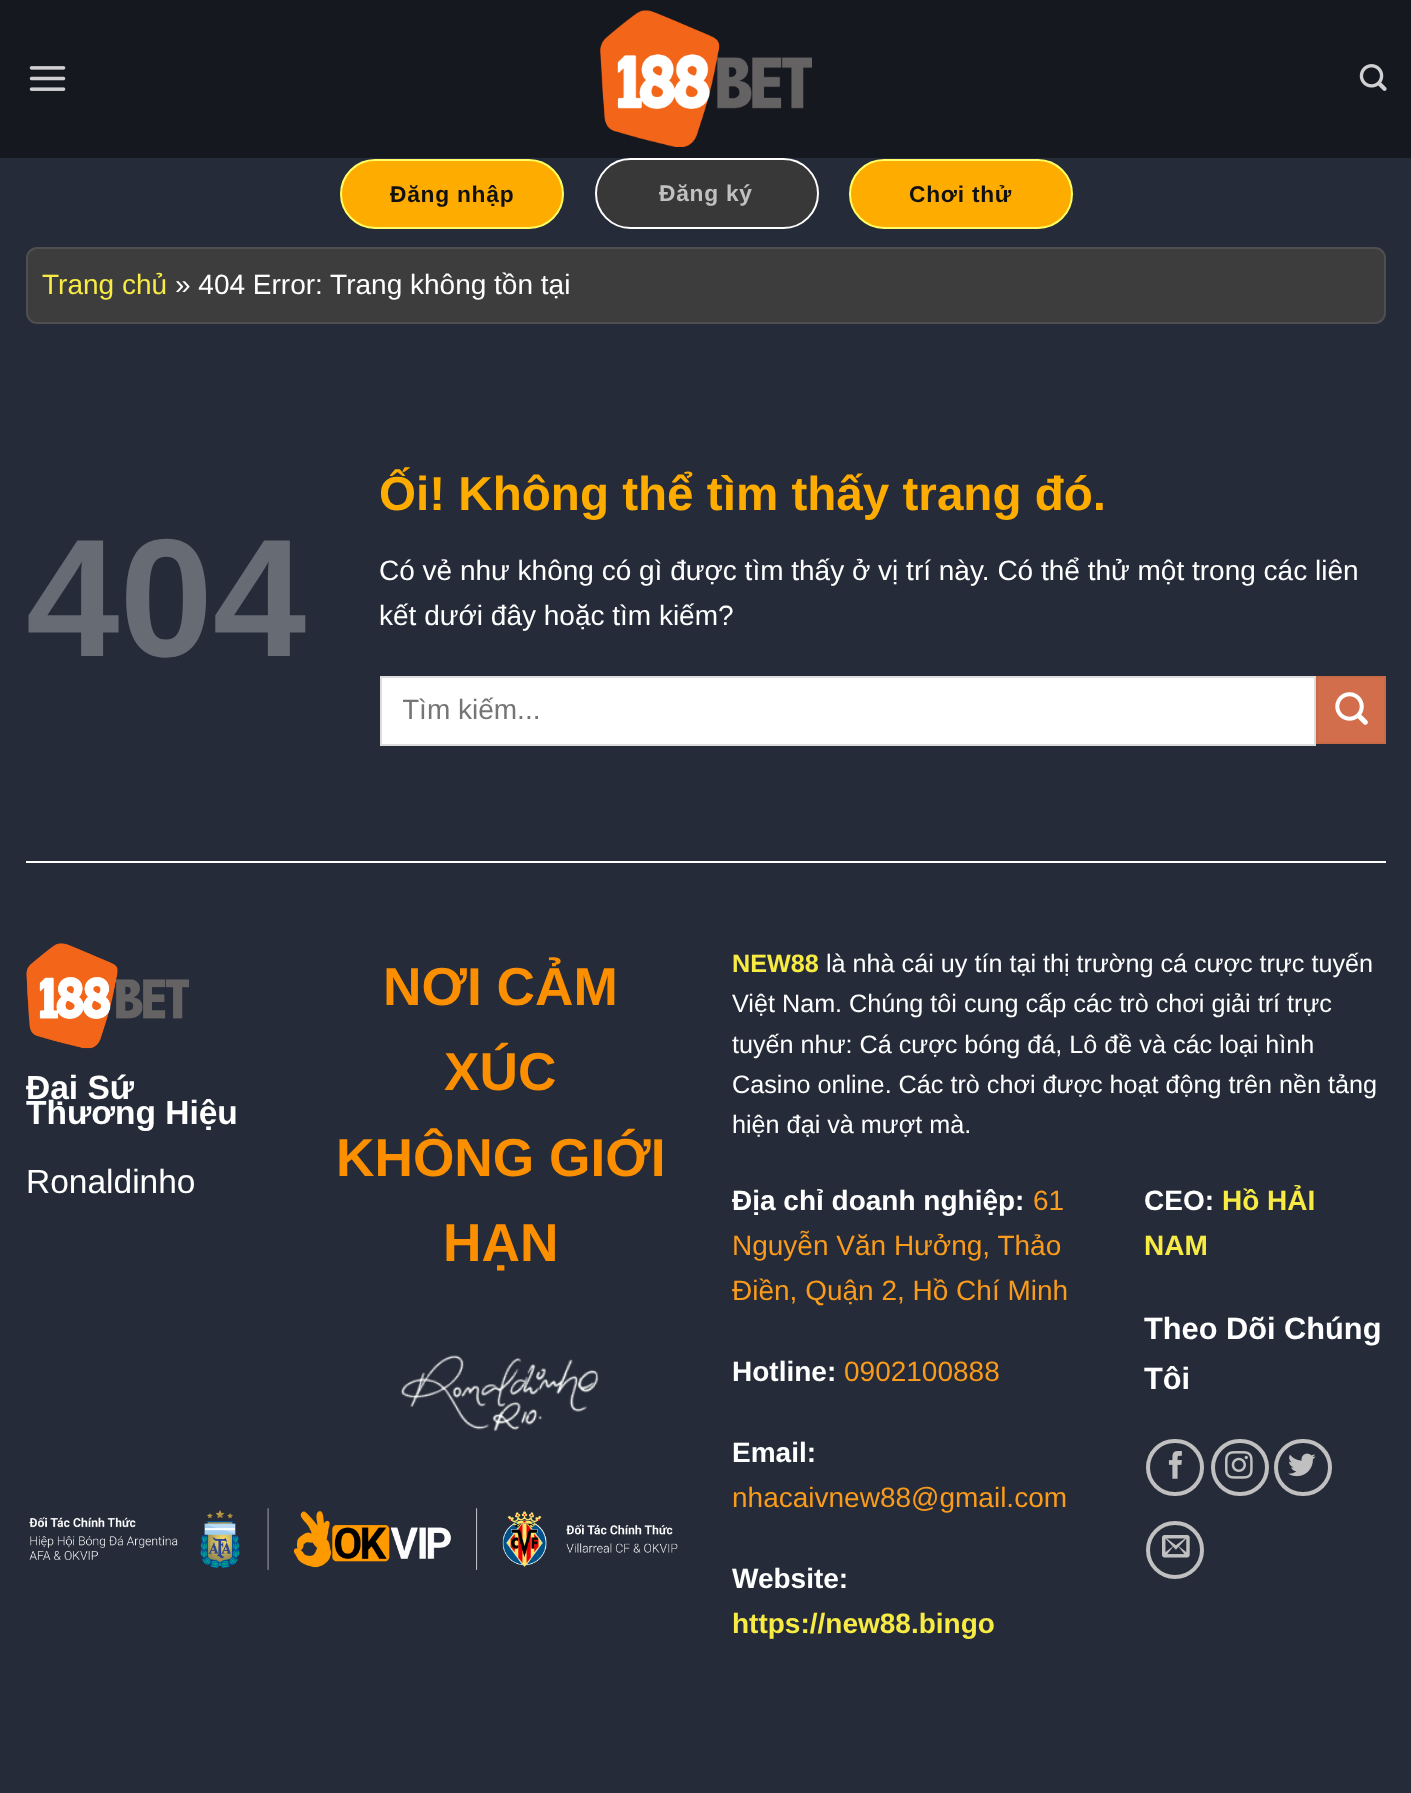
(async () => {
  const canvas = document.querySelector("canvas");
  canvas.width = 1411;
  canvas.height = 1793;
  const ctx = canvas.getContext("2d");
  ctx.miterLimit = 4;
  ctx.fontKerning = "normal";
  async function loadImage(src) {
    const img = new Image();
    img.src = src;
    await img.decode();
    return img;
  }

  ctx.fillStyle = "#252b38";
  ctx.fillRect(0, 0, 1411, 1793);
  ctx.fillStyle = "#15181f";
  ctx.fillRect(0, 0, 1411, 158);
  ctx.drawImage(await loadImage("img/1.png"), 29, 66, 37, 25);
  ctx.drawImage(await loadImage("img/2.png"), 600, 10, 212, 137);
  ctx.drawImage(await loadImage("img/3.png"), 1359, 64, 28, 27);
  ctx.fillStyle = "#fead00";
  ctx.beginPath();
  ctx.roundRect(341, 160, 222, 68, 34);
  ctx.fill();
  ctx.strokeStyle = "#ffff65";
  ctx.lineWidth = 2;
  ctx.stroke();
  ctx.fillStyle = "#383838";
  ctx.beginPath();
  ctx.roundRect(596, 159, 222, 69, 34.5);
  ctx.fill();
  ctx.strokeStyle = "#ffffff";
  ctx.stroke();
  ctx.fillStyle = "#fead00";
  ctx.beginPath();
  ctx.roundRect(850, 160, 222, 68, 34);
  ctx.fill();
  ctx.strokeStyle = "#ffff65";
  ctx.stroke();
  ctx.fillStyle = "#3d3d3d";
  ctx.beginPath();
  ctx.roundRect(27, 248, 1358, 75, 10);
  ctx.fill();
  ctx.strokeStyle = "#4f4f4f";
  ctx.stroke();
  ctx.fillStyle = "#ffffff";
  ctx.beginPath();
  ctx.rect(381, 677, 934, 68);
  ctx.fill();
  ctx.strokeStyle = "#dddddd";
  ctx.stroke();
  ctx.fillStyle = "#d26e4b";
  ctx.beginPath();
  ctx.rect(1317, 677, 68, 66);
  ctx.fill();
  ctx.strokeStyle = "#c86947";
  ctx.stroke();
  ctx.drawImage(await loadImage("img/4.png"), 1335, 692, 33, 33);
  ctx.fillStyle = "#ffffff";
  ctx.fillRect(26, 861, 1360, 2);
  ctx.drawImage(await loadImage("img/5.png"), 26, 943, 163, 106);
  ctx.drawImage(await loadImage("img/6.png"), 401, 1355, 198, 77);
  ctx.drawImage(await loadImage("img/7.png"), 29, 1508, 649, 62);
  ctx.beginPath();
  ctx.roundRect(1148, 1441, 54, 53, 26.5);
  ctx.strokeStyle = "#c0c0c0";
  ctx.lineWidth = 4;
  ctx.stroke();
  ctx.drawImage(await loadImage("img/8.png"), 1168, 1451, 14, 28);
  ctx.beginPath();
  ctx.roundRect(1213, 1441, 54, 53, 26.5);
  ctx.stroke();
  ctx.drawImage(await loadImage("img/9.png"), 1225, 1451, 28, 28);
  ctx.beginPath();
  ctx.roundRect(1276, 1441, 54, 53, 26.5);
  ctx.stroke();
  ctx.drawImage(await loadImage("img/10.png"), 1288, 1453, 28, 24);
  ctx.beginPath();
  ctx.arc(1175, 1550, 27, 0, Math.PI * 2);
  ctx.stroke();
  ctx.drawImage(await loadImage("img/11.png"), 1162, 1535, 28, 23);
  ctx.letterSpacing = "0.75px";
  ctx.font = "bold 22.75px Liberation Sans";
  ctx.fillStyle = "#111111";
  ctx.fillText("Đăng nhập", 390, 202);
  ctx.fillStyle = "#c1c1c1";
  ctx.fillText("Đăng ký", 659, 201);
  ctx.fillStyle = "#111111";
  ctx.fillText("Chơi thử", 909, 202);
  ctx.letterSpacing = "0px";
  ctx.font = "28px Liberation Sans";
  ctx.fillStyle = "#f7eb44";
  ctx.fillText("Trang chủ", 42, 294);
  ctx.fillStyle = "#ffffff";
  ctx.fillText("» 404 Error: Trang không tồn tại", 175, 294);
  ctx.font = "bold 168px Liberation Sans";
  ctx.fillStyle = "#666b74";
  ctx.fillText("404", 26, 656);
  ctx.font = "bold 47.6px Liberation Sans";
  ctx.fillStyle = "#fead00";
  ctx.fillText("Ối! Không thể tìm thấy trang đó.", 379, 510);
  ctx.font = "28px Liberation Sans";
  ctx.fillStyle = "#ffffff";
  ctx.fillText("Có vẻ như không có gì được tìm thấy ở vị trí này. Có thể thử một trong các liên", 379, 580);
  ctx.fillText("kết dưới đây hoặc tìm kiếm?", 379, 625);
  ctx.save();
  ctx.beginPath();
  ctx.rect(403, 695, 883, 31);
  ctx.clip();
  ctx.fillStyle = "#757575";
  ctx.fillText("Tìm kiếm...", 402, 719);
  ctx.restore();
  ctx.font = "bold 33.5px Liberation Sans";
  ctx.fillText("Đại Sứ", 26, 1099);
  ctx.fillText("Thương Hiệu", 26, 1124);
  ctx.font = "33.5px Liberation Sans";
  ctx.fillText("Ronaldinho", 26, 1193);
  ctx.font = "bold 53.25px Liberation Sans";
  ctx.fillStyle = "#fc8f00";
  for (const [text, x, y] of [
    ["NƠI CẢM", 383, 1005],
    ["XÚC", 444, 1090],
    ["KHÔNG GIỚI", 336, 1176],
    ["HẠN", 443, 1261],
  ]) {
    ctx.fillText(text, x, y);
  }
  ctx.font = "bold 25.2px Liberation Sans";
  ctx.fillStyle = "#f7eb44";
  ctx.fillText("NEW88", 732, 972);
  ctx.font = "25.2px Liberation Sans";
  ctx.fillStyle = "#ffffff";
  for (const [text, x, y] of [
    ["là nhà cái uy tín tại thị trường cá cược trực tuyến", 826, 972],
    ["Việt Nam. Chúng tôi cung cấp các trò chơi giải trí trực", 732, 1012],
    ["tuyến như: Cá cược bóng đá, Lô đề và các loại hình", 732, 1053],
    ["Casino online. Các trò chơi được hoạt động trên nền tảng", 732, 1093],
    ["hiện đại và mượt mà.", 732, 1133],
  ]) {
    ctx.fillText(text, x, y);
  }
  ctx.font = "bold 28px Liberation Sans";
  ctx.fillText("Địa chỉ doanh nghiệp:", 732, 1210);
  ctx.font = "28px Liberation Sans";
  ctx.fillStyle = "#f99b1c";
  for (const [text, x, y] of [
    ["61", 1033, 1210],
    ["Nguyễn Văn Hưởng, Thảo", 732, 1255],
    ["Điền, Quận 2, Hồ Chí Minh", 732, 1300],
  ]) {
    ctx.fillText(text, x, y);
  }
  ctx.font = "bold 28px Liberation Sans";
  ctx.fillStyle = "#ffffff";
  ctx.fillText("Hotline:", 732, 1381);
  ctx.font = "28px Liberation Sans";
  ctx.fillStyle = "#f99b1c";
  ctx.fillText("0902100888", 844, 1381);
  ctx.font = "bold 28px Liberation Sans";
  ctx.fillStyle = "#ffffff";
  ctx.fillText("Email:", 732, 1462);
  ctx.font = "28px Liberation Sans";
  ctx.fillStyle = "#f99b1c";
  ctx.fillText("nhacaivnew88@gmail.com", 732, 1507);
  ctx.font = "bold 28px Liberation Sans";
  ctx.fillStyle = "#ffffff";
  ctx.fillText("Website:", 732, 1588);
  ctx.fillStyle = "#f7eb44";
  ctx.fillText("https://new88.bingo", 732, 1633);
  ctx.fillStyle = "#ffffff";
  ctx.fillText("CEO:", 1144, 1210);
  ctx.fillStyle = "#f7eb44";
  ctx.fillText("Hồ HẢI", 1222, 1210);
  ctx.fillText("NAM", 1144, 1255);
  ctx.font = "bold 30.75px Liberation Sans";
  ctx.fillStyle = "#ffffff";
  ctx.fillText("Theo Dõi Chúng", 1144, 1339);
  ctx.fillText("Tôi", 1144, 1389);
})();
